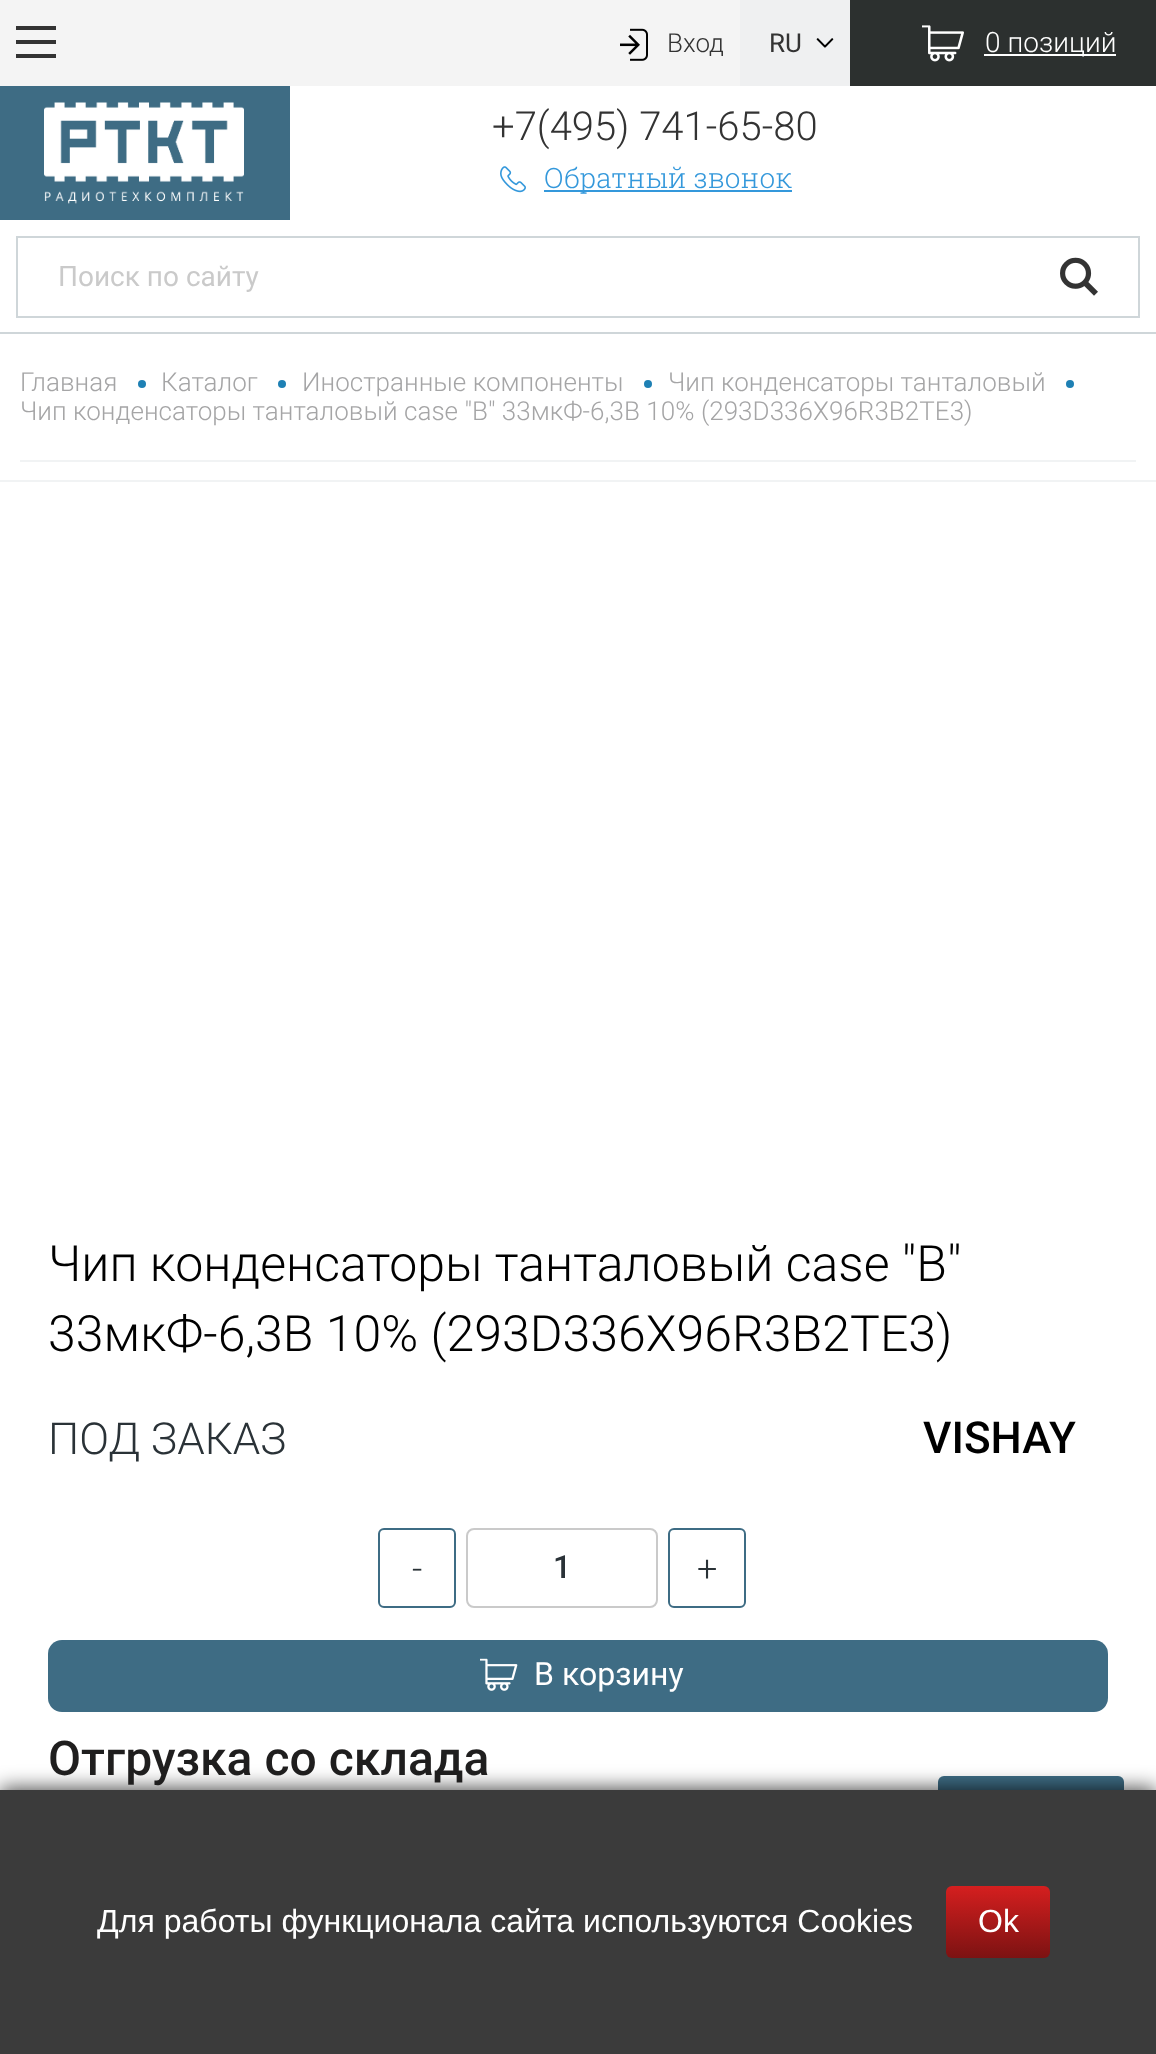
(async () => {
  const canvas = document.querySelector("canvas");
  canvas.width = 1156;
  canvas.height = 2054;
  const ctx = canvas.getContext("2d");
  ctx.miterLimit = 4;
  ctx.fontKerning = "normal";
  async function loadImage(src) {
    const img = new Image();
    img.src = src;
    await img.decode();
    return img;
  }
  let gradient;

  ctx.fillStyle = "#ffffff";
  ctx.fillRect(0, 0, 1156, 2054);
  for (const [x, y, w, h, color] of [
    [0, 0, 740, 86, "#f4f4f4"],
    [16, 54, 40, 4, "#333333"],
    [16, 40, 40, 4, "#333333"],
    [16, 26, 40, 4, "#333333"],
  ]) {
    ctx.fillStyle = color;
    ctx.fillRect(x, y, w, h);
  }
  ctx.drawImage(await loadImage("img/1.png"), 620, 28, 28, 33);
  ctx.fillStyle = "#eff0f1";
  ctx.fillRect(740, 0, 110, 86);
  ctx.drawImage(await loadImage("img/2.png"), 816, 38, 18, 10);
  ctx.fillStyle = "#2c302f";
  ctx.fillRect(850, 0, 306, 86);
  ctx.drawImage(await loadImage("img/3.png"), 922, 25, 42, 37);
  for (const [x, y, w, h, color] of [
    [984, 54, 132, 2, "#ffffff"],
    [0, 332, 1156, 2, "#cfd6d9"],
    [0, 86, 290, 134, "#3e6c84"],
  ]) {
    ctx.fillStyle = color;
    ctx.fillRect(x, y, w, h);
  }
  ctx.drawImage(await loadImage("img/4.png"), 44, 102, 200, 102);
  ctx.drawImage(await loadImage("img/5.png"), 500, 166, 26, 27);
  ctx.fillStyle = "#3498db";
  ctx.fillRect(544, 190, 248, 2);
  ctx.strokeStyle = "#cfd6d9";
  ctx.lineWidth = 2;
  ctx.strokeRect(17, 237, 1122, 80);
  ctx.drawImage(await loadImage("img/6.png"), 1060, 257, 38, 39);
  ctx.fillStyle = "#f1f3f4";
  ctx.fillRect(0, 480, 1156, 2);
  ctx.fillRect(20, 460, 1116, 2);
  ctx.fillStyle = "#1e80b4";
  ctx.beginPath();
  ctx.arc(142, 384, 4, 0, Math.PI * 2);
  ctx.fill();
  ctx.beginPath();
  ctx.arc(282, 384, 4, 0, Math.PI * 2);
  ctx.fill();
  ctx.beginPath();
  ctx.arc(648, 384, 4, 0, Math.PI * 2);
  ctx.fill();
  ctx.beginPath();
  ctx.arc(1070, 384, 4, 0, Math.PI * 2);
  ctx.fill();
  ctx.beginPath();
  ctx.roundRect(379, 1529, 76, 78, 5);
  ctx.strokeStyle = "#3e6c84";
  ctx.stroke();
  ctx.beginPath();
  ctx.roundRect(467, 1529, 190, 78, 7);
  ctx.strokeStyle = "#cacaca";
  ctx.stroke();
  ctx.beginPath();
  ctx.roundRect(669, 1529, 76, 78, 5);
  ctx.strokeStyle = "#3e6c84";
  ctx.stroke();
  ctx.fillStyle = "#3e6c84";
  ctx.beginPath();
  ctx.roundRect(48, 1640, 1060, 72, 14);
  ctx.fill();
  ctx.drawImage(await loadImage("img/7.png"), 480, 1658, 38, 33);
  ctx.beginPath();
  ctx.roundRect(938, 1776, 186, 86, 6);
  ctx.fill();
  ctx.fillStyle = "rgba(0, 0, 0, 0.7)";
  ctx.filter = "blur(10px)";
  ctx.beginPath();
  ctx.rect(0, 1788, 1156, 264);
  ctx.fill();
  ctx.filter = "none";
  ctx.fillStyle = "#3b3b3b";
  ctx.fillRect(0, 1790, 1156, 264);
  gradient = ctx.createLinearGradient(998, 1886, 998, 1958);
  gradient.addColorStop(0, "#d51f1f");
  gradient.addColorStop(1, "#7c1212");
  ctx.fillStyle = gradient;
  ctx.beginPath();
  ctx.roundRect(946, 1886, 104, 72, 6);
  ctx.fill();
  ctx.letterSpacing = "0.03px";
  ctx.font = "300 26px Roboto";
  ctx.fillStyle = "#333333";
  ctx.fillText("Вход", 667, 52);
  ctx.letterSpacing = "0px";
  ctx.font = "26px Roboto";
  ctx.fillText("RU", 769, 52);
  ctx.letterSpacing = "0.03px";
  ctx.font = "300 28px Roboto";
  ctx.fillStyle = "#ffffff";
  ctx.fillText("0 позиций", 985, 52);
  ctx.font = "300 40px Roboto";
  ctx.fillStyle = "#333333";
  ctx.fillText("+7(495) 741-65-80", 492, 140);
  ctx.font = "300 28px Roboto Slab";
  ctx.fillStyle = "#3498db";
  ctx.fillText("Обратный звонок", 544, 188);
  ctx.letterSpacing = "0px";
  ctx.font = "28px Roboto";
  ctx.fillStyle = "#cacaca";
  ctx.fillText("Поиск по сайту", 58, 286);
  ctx.letterSpacing = "0.03px";
  ctx.font = "300 26px Roboto";
  ctx.fillStyle = "#a5a5a6";
  for (const [text, x, y] of [
    ["Главная", 20, 391],
    ["Каталог", 161, 391],
    ["Иностранные компоненты", 302, 391],
    ["Чип конденсаторы танталовый", 668, 391],
    ["Чип конденсаторы танталовый case \"B\" 33мкФ-6,3В 10% (293D336X96R3B2TE3)", 20, 420],
  ]) {
    ctx.fillText(text, x, y);
  }
  ctx.font = "300 50px Roboto";
  ctx.fillStyle = "#000000";
  ctx.fillText("Чип конденсаторы танталовый case \"B\"", 48, 1281);
  ctx.fillText("33мкФ-6,3В 10% (293D336X96R3B2TE3)", 48, 1351);
  ctx.font = "300 44px Roboto";
  ctx.fillStyle = "#2a3237";
  ctx.fillText("ПОД ЗАКАЗ", 48, 1454);
  ctx.font = "500 44px Roboto";
  ctx.fillStyle = "#000000";
  ctx.fillText("VISHAY", 923, 1453);
  ctx.font = "300 36px Roboto";
  ctx.fillStyle = "#2a3237";
  ctx.fillText("-", 412, 1581);
  ctx.letterSpacing = "0px";
  ctx.font = "500 32px Roboto";
  ctx.fillText("1", 553, 1578);
  ctx.letterSpacing = "0.03px";
  ctx.font = "300 36px Roboto";
  ctx.fillText("+", 697, 1581);
  ctx.font = "32px Roboto";
  ctx.fillStyle = "#ffffff";
  ctx.fillText("В корзину", 534, 1685);
  ctx.font = "500 48px Roboto";
  ctx.fillStyle = "#1f1e1e";
  ctx.fillText("Отгрузка со склада", 48, 1775);
  ctx.font = "32px Liberation Sans";
  ctx.fillStyle = "#ffffff";
  ctx.fillText("Для работы функционала сайта используются Cookies", 97, 1932);
  ctx.letterSpacing = "0px";
  ctx.fillText("Ok", 978, 1932);
})();
